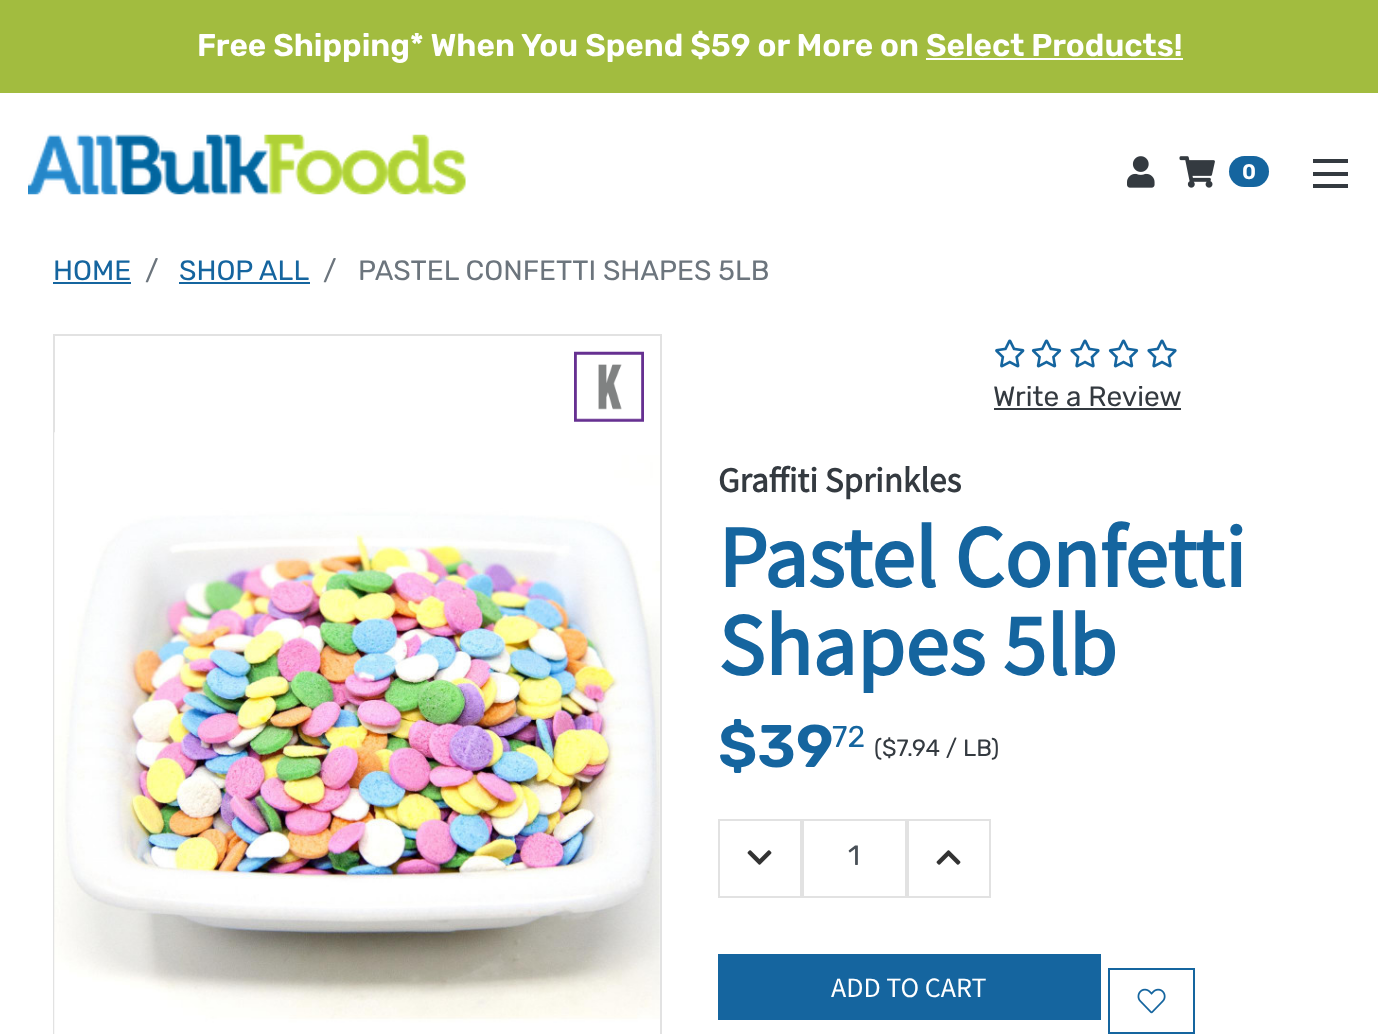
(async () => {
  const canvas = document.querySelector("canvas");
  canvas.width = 1378;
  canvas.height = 1034;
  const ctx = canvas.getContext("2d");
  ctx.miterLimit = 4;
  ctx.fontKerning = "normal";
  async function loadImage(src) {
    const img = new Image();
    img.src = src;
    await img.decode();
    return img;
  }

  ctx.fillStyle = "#ffffff";
  ctx.fillRect(0, 0, 1378, 1034);
  ctx.fillStyle = "#a2bc3f";
  ctx.fillRect(0, 0, 1378, 93);
  ctx.fillStyle = "#ffffff";
  ctx.fillRect(926, 58, 257, 2);
  ctx.drawImage(await loadImage("img/1.png"), 28, 134, 438, 61);
  ctx.drawImage(await loadImage("img/2.png"), 1127, 156, 28, 32);
  ctx.drawImage(await loadImage("img/3.png"), 1179, 156, 36, 32);
  ctx.fillStyle = "#15659f";
  ctx.beginPath();
  ctx.roundRect(1229, 156, 40, 31, 15.5);
  ctx.fill();
  for (const [x, y, w, h, color] of [
    [1313, 172, 35, 4, "#343a40"],
    [1313, 159, 35, 4, "#343a40"],
    [1313, 184, 35, 4, "#343a40"],
    [53, 282, 78, 2, "#15659f"],
    [179, 282, 131, 2, "#15659f"],
  ]) {
    ctx.fillStyle = color;
    ctx.fillRect(x, y, w, h);
  }
  ctx.strokeStyle = "#e2e2e2";
  ctx.lineWidth = 2;
  ctx.strokeRect(54, 335, 607, 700);
  ctx.drawImage(await loadImage("img/4.png"), 574, 351, 70, 71);
  ctx.drawImage(await loadImage("img/5.png"), 54, 432, 606, 602);
  ctx.drawImage(await loadImage("img/6.png"), 995, 339, 30, 29);
  ctx.drawImage(await loadImage("img/7.png"), 1031, 339, 31, 29);
  ctx.drawImage(await loadImage("img/8.png"), 1070, 339, 30, 29);
  ctx.drawImage(await loadImage("img/7.png"), 1108, 339, 31, 29);
  ctx.drawImage(await loadImage("img/8.png"), 1147, 339, 30, 29);
  ctx.fillStyle = "#343a40";
  ctx.fillRect(994, 408, 187, 2);
  ctx.strokeRect(719, 820, 82, 77);
  ctx.drawImage(await loadImage("img/9.png"), 747, 850, 25, 15);
  ctx.strokeRect(803, 820, 103, 77);
  ctx.strokeRect(908, 820, 82, 77);
  ctx.drawImage(await loadImage("img/10.png"), 936, 850, 25, 15);
  ctx.fillStyle = "#15659f";
  ctx.fillRect(718, 954, 383, 66);
  ctx.strokeStyle = "#15659f";
  ctx.strokeRect(1109, 969, 85, 64);
  ctx.drawImage(await loadImage("img/11.png"), 1137, 988, 29, 26);
  ctx.font = "600 31.5px Rubik";
  ctx.fillStyle = "#ffffff";
  ctx.fillText("Free Shipping* When You Spend $59 or More on Select Products!", 197, 56);
  ctx.font = "600 21px Rubik";
  ctx.fillText("0", 1242, 179);
  ctx.font = "28px Rubik";
  ctx.fillStyle = "#15659f";
  ctx.fillText("HOME", 53, 280);
  ctx.fillStyle = "#6c757d";
  ctx.fillText("/", 145, 280);
  ctx.fillStyle = "#15659f";
  ctx.fillText("SHOP ALL", 179, 280);
  ctx.fillStyle = "#6c757d";
  ctx.fillText("/", 323, 280);
  ctx.fillText("PASTEL CONFETTI SHAPES 5LB", 358, 280);
  ctx.fillStyle = "#343a40";
  ctx.fillText("Write a Review", 993, 406);
  ctx.font = "bold 35px Source Sans Pro";
  ctx.fillText("Graffiti Sprinkles", 718, 492);
  ctx.font = "bold 87.5px Source Sans Pro";
  ctx.fillStyle = "#15659f";
  ctx.fillText("Pastel Confetti", 718, 587);
  ctx.fillText("Shapes 5lb", 718, 675);
  ctx.font = "600 60px Rubik";
  ctx.fillText("$39", 718, 767);
  ctx.font = "30px Rubik";
  ctx.fillText("72", 832, 747);
  ctx.font = "23.5px Rubik";
  ctx.fillStyle = "#343a40";
  ctx.fillText("($7.94 / LB)", 874, 756);
  ctx.font = "28px Rubik";
  ctx.fillStyle = "#495057";
  ctx.fillText("1", 848, 865);
  ctx.font = "28px Source Sans Pro";
  ctx.fillStyle = "#ffffff";
  ctx.fillText("ADD TO CART", 831, 997);
})();
